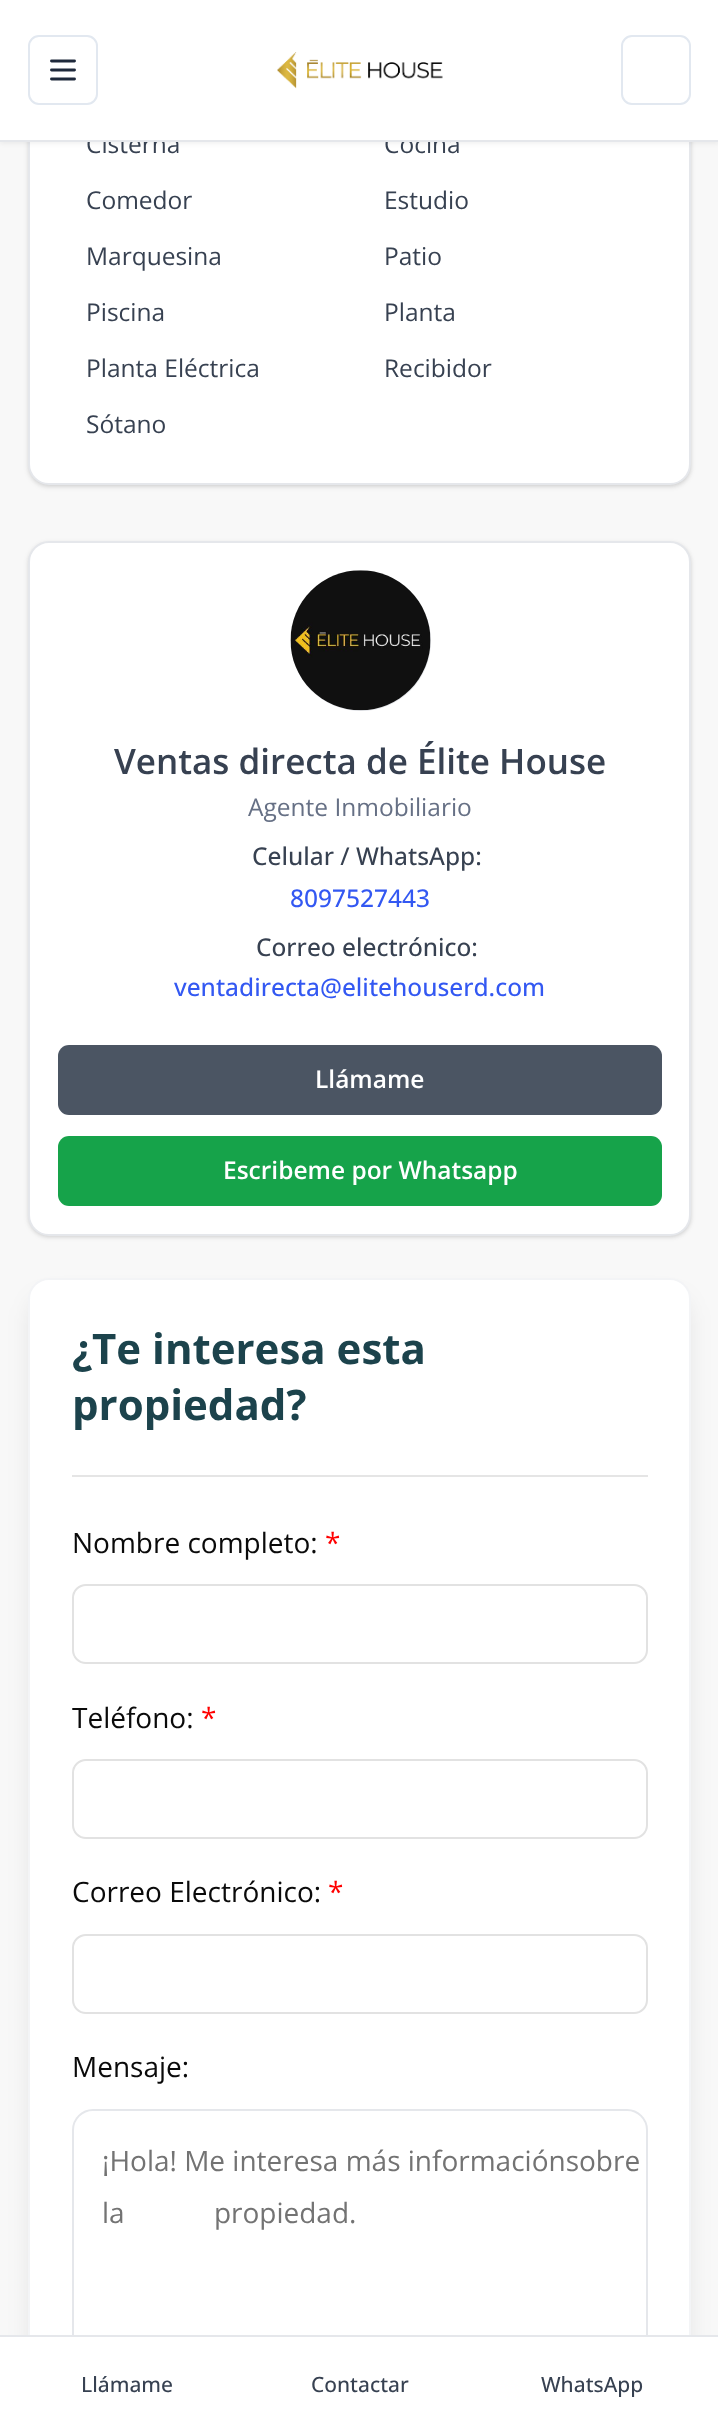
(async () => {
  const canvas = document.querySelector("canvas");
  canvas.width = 718;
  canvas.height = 2427;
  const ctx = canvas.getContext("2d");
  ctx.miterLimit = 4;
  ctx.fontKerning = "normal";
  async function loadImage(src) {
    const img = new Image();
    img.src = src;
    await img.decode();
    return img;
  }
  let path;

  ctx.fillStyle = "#f8f8f8";
  ctx.fillRect(0, 0, 718, 2427);
  ctx.fillStyle = "rgba(0, 0, 0, 0.1)";
  ctx.filter = "blur(2px)";
  ctx.beginPath();
  ctx.roundRect(30, -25, 660, 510, 19);
  ctx.fill();
  ctx.filter = "none";
  ctx.filter = "blur(2.5px)";
  ctx.beginPath();
  ctx.roundRect(28, -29, 663, 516, 21);
  ctx.fill();
  ctx.filter = "none";
  ctx.fillStyle = "#ffffff";
  ctx.beginPath();
  ctx.roundRect(29, -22, 661, 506, 20);
  ctx.fill();
  ctx.strokeStyle = "#e5e7eb";
  ctx.lineWidth = 2;
  ctx.stroke();
  ctx.fillStyle = "rgba(0, 0, 0, 0.05)";
  ctx.filter = "blur(2px)";
  ctx.beginPath();
  ctx.rect(0, 2, 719, 142);
  ctx.fill();
  ctx.filter = "none";
  ctx.fillStyle = "rgba(0, 0, 0, 0.1)";
  ctx.filter = "blur(2px)";
  ctx.beginPath();
  ctx.roundRect(30, 544, 660, 692, 19);
  ctx.fill();
  ctx.filter = "none";
  ctx.filter = "blur(2.5px)";
  ctx.beginPath();
  ctx.roundRect(28, 543, 663, 694, 21);
  ctx.fill();
  ctx.filter = "none";
  ctx.fillStyle = "#ffffff";
  ctx.beginPath();
  ctx.roundRect(29, 542, 661, 693, 20);
  ctx.fill();
  ctx.stroke();
  ctx.fillStyle = "#e5e7eb";
  ctx.beginPath();
  ctx.arc(361, 641, 70, 0, Math.PI * 2);
  ctx.fill();
  ctx.drawImage(await loadImage("img/2.png"), 290, 570, 141, 141);
  ctx.fillStyle = "#4b5563";
  ctx.beginPath();
  ctx.roundRect(58, 1045, 604, 70, 11);
  ctx.fill();
  ctx.fillStyle = "#16a34a";
  ctx.beginPath();
  ctx.roundRect(58, 1136, 604, 70, 11);
  ctx.fill();
  ctx.fillStyle = "rgba(0, 0, 0, 0.1)";
  ctx.filter = "blur(13px)";
  ctx.beginPath();
  ctx.roundRect(33, 1300, 653, 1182, 16);
  ctx.fill();
  ctx.filter = "none";
  ctx.fillStyle = "#ffffff";
  ctx.beginPath();
  ctx.roundRect(29, 1279, 661, 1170, 20);
  ctx.fill();
  ctx.strokeStyle = "#f3f4f6";
  ctx.stroke();
  ctx.fillStyle = "#e5e5e5";
  ctx.fillRect(72, 1475, 576, 2);
  ctx.beginPath();
  ctx.roundRect(73, 1585, 574, 78, 13);
  ctx.strokeStyle = "#e2e2e2";
  ctx.stroke();
  ctx.beginPath();
  ctx.roundRect(73, 1760, 574, 78, 13);
  ctx.stroke();
  ctx.beginPath();
  ctx.roundRect(73, 1935, 574, 78, 13);
  ctx.stroke();
  ctx.beginPath();
  ctx.roundRect(73, 2110, 574, 260, 20);
  ctx.strokeStyle = "#e5e7eb";
  ctx.stroke();
  ctx.fillStyle = "#ffffff";
  ctx.fillRect(0, 2337, 718, 90);
  ctx.fillStyle = "#e5e7eb";
  ctx.fillRect(0, 2335, 718, 2);
  ctx.font = "24.5px Open Sans";
  ctx.fillStyle = "#374151";
  ctx.fillText("Cisterna", 86, 153);
  ctx.fillText("Cocina", 384, 153);
  ctx.fillStyle = "#ffffff";
  ctx.fillRect(0, 0, 718, 140);
  ctx.drawImage(await loadImage("img/1.png"), 277, 52, 166, 37);
  ctx.beginPath();
  ctx.roundRect(29, 36, 68, 68, 10);
  ctx.strokeStyle = "#e2e8f0";
  ctx.stroke();
  path = new Path2D("M51.5 70H74.5M51.5 61H74.5M51.5 79H74.5");
  ctx.strokeStyle = "#1e293b";
  ctx.lineWidth = 2.9;
  ctx.lineCap = "round";
  ctx.lineJoin = "round";
  ctx.stroke(path);
  ctx.beginPath();
  ctx.roundRect(622, 36, 68, 68, 10);
  ctx.strokeStyle = "#e2e8f0";
  ctx.lineWidth = 2;
  ctx.lineJoin = "miter";
  ctx.stroke();
  ctx.fillStyle = "#e5e7eb";
  ctx.fillRect(0, 140, 718, 2);
  ctx.fillStyle = "#374151";
  for (const [text, x, y] of [
    ["Comedor", 86, 209],
    ["Estudio", 384, 209],
    ["Marquesina", 86, 265],
    ["Patio", 384, 265],
    ["Piscina", 86, 321],
    ["Planta", 384, 321],
    ["Planta Eléctrica", 86, 377],
    ["Recibidor", 384, 377],
    ["Sótano", 86, 433],
  ]) {
    ctx.fillText(text, x, y);
  }
  ctx.font = "600 35px Open Sans";
  ctx.fillText("Ventas directa de Élite House", 114, 774);
  ctx.font = "24.5px Open Sans";
  ctx.fillStyle = "#667085";
  ctx.fillText("Agente Inmobiliario", 248, 816);
  ctx.font = "500 24.5px Open Sans";
  ctx.fillStyle = "#374151";
  ctx.fillText("Celular / WhatsApp:", 252, 865);
  ctx.fillStyle = "#3358f2";
  ctx.fillText("8097527443", 290, 907);
  ctx.fillStyle = "#374151";
  ctx.fillText("Correo electrónico:", 256, 956);
  ctx.fillStyle = "#3358f2";
  ctx.fillText("ventadirecta@elitehouserd.com", 174, 996);
  ctx.font = "600 24.5px Open Sans";
  ctx.fillStyle = "#ffffff";
  ctx.fillText("Llámame", 315, 1088);
  ctx.fillText("Escribeme por Whatsapp", 223, 1179);
  ctx.font = "bold 42px Open Sans";
  ctx.fillStyle = "#1c434c";
  ctx.fillText("¿Te interesa esta", 72, 1364);
  ctx.fillText("propiedad?", 72, 1420);
  ctx.font = "28px Open Sans";
  ctx.fillStyle = "#0a0a0a";
  ctx.fillText("Nombre completo:", 72, 1553);
  ctx.fillStyle = "#ff0000";
  ctx.fillText("*", 325, 1553);
  ctx.fillStyle = "#0a0a0a";
  ctx.fillText("Teléfono:", 72, 1728);
  ctx.fillStyle = "#ff0000";
  ctx.fillText("*", 201, 1728);
  ctx.fillStyle = "#0a0a0a";
  ctx.fillText("Correo Electrónico:", 72, 1902);
  ctx.fillStyle = "#ff0000";
  ctx.fillText("*", 328, 1902);
  ctx.fillStyle = "#0a0a0a";
  ctx.fillText("Mensaje:", 72, 2077);
  ctx.fillStyle = "#737373";
  ctx.fillText("¡Hola! Me interesa más informaciónsobre", 102, 2171);
  ctx.wordSpacing = "82px";
  ctx.fillText("la propiedad.", 102, 2223);
  ctx.wordSpacing = "0px";
  ctx.font = "500 21px Open Sans";
  ctx.fillStyle = "#374151";
  for (const [text, x, y] of [
    ["Llámame", 81, 2392],
    ["Contactar", 311, 2392],
    ["WhatsApp", 541, 2392],
  ]) {
    ctx.fillText(text, x, y);
  }
})();
